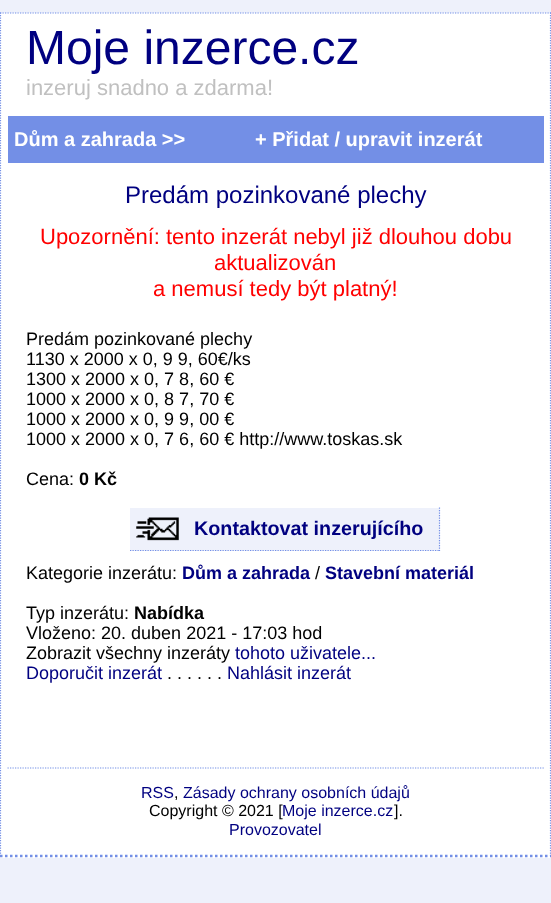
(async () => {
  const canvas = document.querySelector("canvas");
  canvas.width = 551;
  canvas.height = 903;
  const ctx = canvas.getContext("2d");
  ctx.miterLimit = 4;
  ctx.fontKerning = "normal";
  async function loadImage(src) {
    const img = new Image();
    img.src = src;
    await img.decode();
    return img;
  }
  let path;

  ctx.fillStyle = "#eef1fb";
  ctx.fillRect(0, 0, 551, 903);
  ctx.fillStyle = "#ffffff";
  ctx.fillRect(0, 13, 551, 845);
  path = new Path2D("M0 13H551");
  ctx.strokeStyle = "#738fe6";
  ctx.lineWidth = 1.2;
  ctx.setLineDash([1.25, 1.25]);
  ctx.stroke(path);
  path = new Path2D("M550.5 12.5V857.5");
  ctx.stroke(path);
  path = new Path2D("M0 856H551");
  ctx.lineWidth = 2.5;
  ctx.setLineDash([2.5, 2.5]);
  ctx.stroke(path);
  path = new Path2D("M.5 12.5V857.5");
  ctx.lineWidth = 1.2;
  ctx.setLineDash([1.25, 1.25]);
  ctx.stroke(path);
  ctx.fillStyle = "#738fe6";
  ctx.fillRect(8, 116, 536, 47);
  ctx.fillStyle = "#eef1fb";
  ctx.fillRect(130, 508, 310, 43);
  ctx.drawImage(await loadImage("img/1.png"), 136, 517, 43, 24);
  path = new Path2D("M439.5 507.5V551");
  ctx.stroke(path);
  path = new Path2D("M130 550.5H440");
  ctx.stroke(path);
  path = new Path2D("M7.5 768H544");
  ctx.stroke(path);
  ctx.font = "48px Liberation Sans";
  ctx.fillStyle = "#000080";
  ctx.fillText("Moje inzerce.cz", 26, 64);
  ctx.font = "22px Liberation Sans";
  ctx.fillStyle = "#c0c0c0";
  ctx.fillText("inzeruj snadno a zdarma!", 26, 95);
  ctx.font = "bold 20px Liberation Sans";
  ctx.fillStyle = "#ffffff";
  ctx.fillText("Dům a zahrada >>", 14, 146);
  ctx.fillText("+ Přidat / upravit inzerát", 255, 146);
  ctx.font = "24px Liberation Sans";
  ctx.fillStyle = "#000080";
  ctx.fillText("Predám pozinkované plechy", 125, 203);
  ctx.font = "22px Liberation Sans";
  ctx.fillStyle = "#ff0000";
  for (const [text, x, y] of [
    ["Upozornění: tento inzerát nebyl již dlouhou dobu", 40, 244],
    ["aktualizován", 214, 270],
    ["a nemusí tedy být platný!", 153, 296],
  ]) {
    ctx.fillText(text, x, y);
  }
  ctx.font = "18px Liberation Sans";
  ctx.fillStyle = "#000000";
  for (const [text, x, y] of [
    ["Predám pozinkované plechy", 26, 345],
    ["1130 x 2000 x 0, 9 9, 60€/ks", 26, 365],
    ["1300 x 2000 x 0, 7 8, 60 €", 26, 385],
    ["1000 x 2000 x 0, 8 7, 70 €", 26, 405],
    ["1000 x 2000 x 0, 9 9, 00 €", 26, 425],
    ["1000 x 2000 x 0, 7 6, 60 € http://www.toskas.sk", 26, 445],
    ["Cena:", 26, 485],
  ]) {
    ctx.fillText(text, x, y);
  }
  ctx.font = "bold 18px Liberation Sans";
  ctx.fillText("0 Kč", 79, 485);
  ctx.font = "bold 19.75px Liberation Sans";
  ctx.fillStyle = "#000080";
  ctx.fillText("Kontaktovat inzerujícího", 194, 535);
  ctx.font = "18px Liberation Sans";
  ctx.fillStyle = "#000000";
  ctx.fillText("Kategorie inzerátu:", 26, 579);
  ctx.font = "bold 18px Liberation Sans";
  ctx.fillStyle = "#000080";
  ctx.fillText("Dům a zahrada", 182, 579);
  ctx.font = "18px Liberation Sans";
  ctx.fillStyle = "#000000";
  ctx.fillText("/", 315, 579);
  ctx.font = "bold 18px Liberation Sans";
  ctx.fillStyle = "#000080";
  ctx.fillText("Stavební materiál", 325, 579);
  ctx.font = "18px Liberation Sans";
  ctx.fillStyle = "#000000";
  ctx.fillText("Typ inzerátu:", 26, 619);
  ctx.font = "bold 18px Liberation Sans";
  ctx.fillText("Nabídka", 134, 619);
  ctx.font = "18px Liberation Sans";
  ctx.fillText("Vloženo: 20. duben 2021 - 17:03 hod", 26, 639);
  ctx.fillText("Zobrazit všechny inzeráty", 26, 659);
  ctx.fillStyle = "#000080";
  ctx.fillText("tohoto uživatele...", 235, 659);
  ctx.fillText("Doporučit inzerát", 26, 679);
  ctx.fillStyle = "#000000";
  ctx.fillText(". . . . . .", 167, 679);
  ctx.fillStyle = "#000080";
  ctx.fillText("Nahlásit inzerát", 227, 679);
  ctx.font = "16px Liberation Sans";
  ctx.fillText("RSS", 141, 798);
  ctx.fillStyle = "#000000";
  ctx.fillText(",", 174, 798);
  ctx.fillStyle = "#000080";
  ctx.fillText("Zásady ochrany osobních údajů", 183, 798);
  ctx.fillStyle = "#000000";
  ctx.fillText("Copyright © 2021 [", 149, 816);
  ctx.fillStyle = "#000080";
  ctx.fillText("Moje inzerce.cz", 282, 816);
  ctx.fillStyle = "#000000";
  ctx.fillText("].", 394, 816);
  ctx.fillStyle = "#000080";
  ctx.fillText("Provozovatel", 229, 835);
})();
